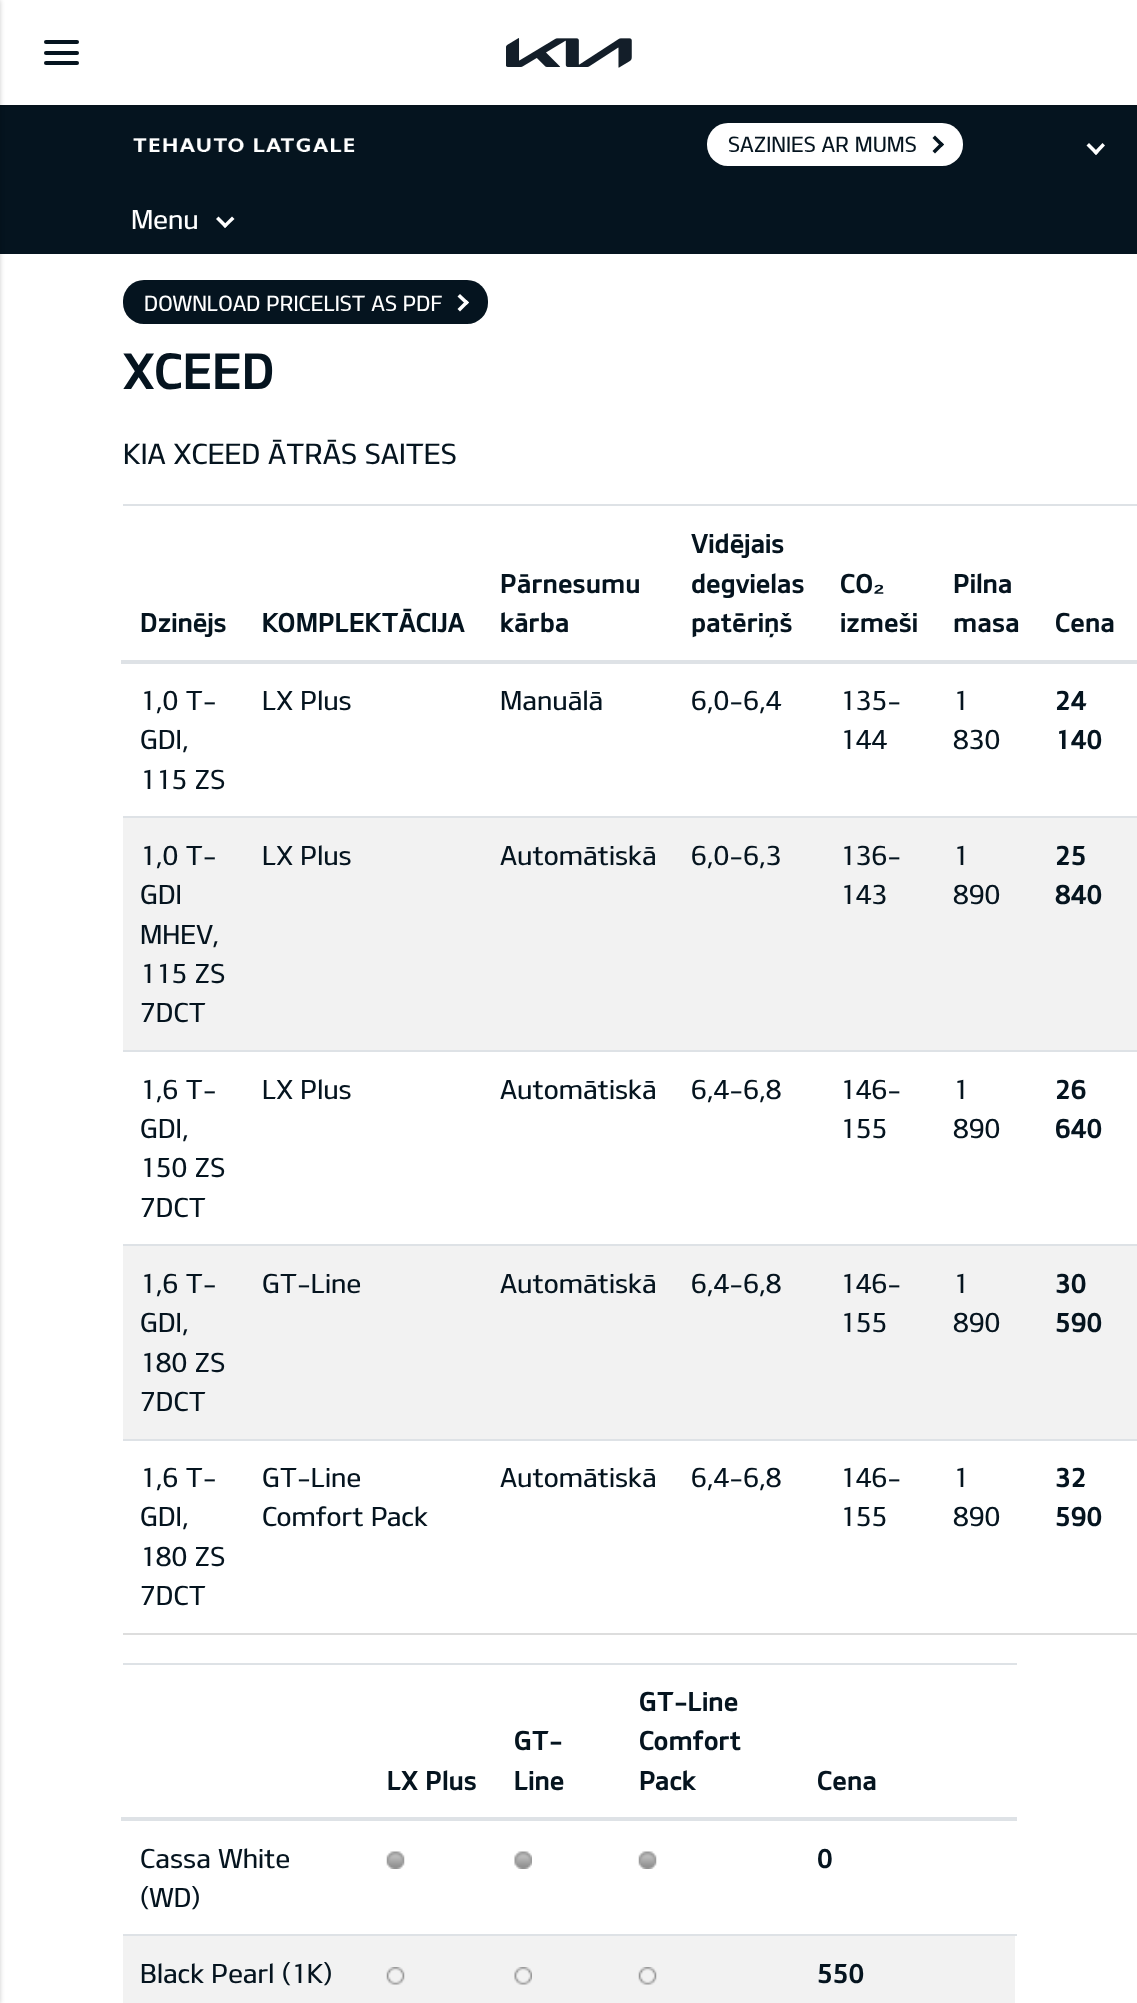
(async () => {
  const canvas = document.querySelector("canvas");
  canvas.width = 1137;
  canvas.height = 2003;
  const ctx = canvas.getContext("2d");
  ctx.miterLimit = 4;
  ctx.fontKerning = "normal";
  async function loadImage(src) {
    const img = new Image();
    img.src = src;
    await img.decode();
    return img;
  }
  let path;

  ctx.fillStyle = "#ffffff";
  ctx.fillRect(0, 0, 1137, 2003);
  ctx.fillStyle = "#05121c";
  path = new Path2D("M0 105V107H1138V2V105Z");
  ctx.fill(path);
  ctx.fillStyle = "#05141f";
  ctx.fillRect(0, 107, 1137, 147);
  ctx.fillStyle = "rgba(0, 0, 0, 0.2)";
  ctx.filter = "blur(2.5px)";
  ctx.beginPath();
  ctx.rect(-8, 0, 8, 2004);
  ctx.fill();
  ctx.filter = "none";
  ctx.fillStyle = "#05141f";
  ctx.beginPath();
  ctx.roundRect(44, 51, 35, 4, 2);
  ctx.fill();
  ctx.beginPath();
  ctx.roundRect(44, 40, 35, 4, 2);
  ctx.fill();
  ctx.beginPath();
  ctx.roundRect(44, 61, 35, 4, 2);
  ctx.fill();
  ctx.drawImage(await loadImage("img/1.png"), 506, 38, 126, 30);
  ctx.drawImage(await loadImage("img/2.png"), 133, 138, 222, 14);
  ctx.fillStyle = "#ffffff";
  ctx.beginPath();
  ctx.roundRect(707, 123, 256, 43, 21);
  ctx.fill();
  ctx.fillStyle = "#05141f";
  path = new Path2D("M935 135.5L944 144.5L941.5 147L932.5 138Z");
  ctx.fill(path);
  path = new Path2D("M941.5 142L944 144.5L935 153.5L932.5 151Z");
  ctx.fill(path);
  ctx.fillStyle = "#ffffff";
  path = new Path2D("M1105 145.5L1096 155L1093.5 152.5L1102.5 143Z");
  ctx.fill(path);
  path = new Path2D("M1098.5 152.5L1096 155L1086.5 145.5L1089 143Z");
  ctx.fill(path);
  path = new Path2D("M234.5 219L225 228L223 225.5L232 216.5Z");
  ctx.fill(path);
  path = new Path2D("M227.5 225.5L225 228L216 219L218.5 216.5Z");
  ctx.fill(path);
  ctx.fillStyle = "#05141f";
  ctx.beginPath();
  ctx.roundRect(123, 280, 365, 44, 21);
  ctx.fill();
  ctx.fillStyle = "#ffffff";
  path = new Path2D("M460 294L469 302.5L466.5 305L457.5 296.5Z");
  ctx.fill(path);
  path = new Path2D("M466.5 300L469 302.5L460 311.5L457.5 309Z");
  ctx.fill(path);
  for (const [x, y, w, h, color] of [
    [123, 1633, 1014, 2, "#dddddd"],
    [123, 504, 1014, 2, "#dee2e6"],
    [121, 660, 1016, 4, "#dee2e6"],
    [1132, 817, 5, 233, "#f2f2f2"],
    [123, 816, 1014, 2, "#dee2e6"],
    [123, 818, 1009, 232, "#f2f2f2"],
    [123, 1050, 1014, 2, "#dee2e6"],
    [1132, 1244, 5, 195, "#f2f2f2"],
    [123, 1244, 1014, 2, "#dee2e6"],
    [123, 1246, 1009, 193, "#f2f2f2"],
    [123, 1439, 1014, 2, "#dee2e6"],
    [123, 1663, 894, 2, "#dee2e6"],
    [121, 1817, 896, 4, "#dee2e6"],
  ]) {
    ctx.fillStyle = color;
    ctx.fillRect(x, y, w, h);
  }
  ctx.drawImage(await loadImage("img/3.png"), 386, 1851, 19, 18);
  ctx.drawImage(await loadImage("img/4.png"), 514, 1851, 18, 18);
  ctx.drawImage(await loadImage("img/3.png"), 638, 1851, 19, 18);
  ctx.fillStyle = "#f2f2f2";
  ctx.fillRect(123, 1936, 892, 67);
  ctx.drawImage(await loadImage("img/5.png"), 386, 1967, 19, 18);
  ctx.drawImage(await loadImage("img/6.png"), 514, 1967, 18, 18);
  ctx.drawImage(await loadImage("img/5.png"), 638, 1967, 19, 18);
  ctx.fillStyle = "#dee2e6";
  ctx.fillRect(123, 1934, 894, 2);
  ctx.font = "21px 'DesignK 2'";
  ctx.fillStyle = "#05141f";
  ctx.fillText("SAZINIES AR MUMS", 728, 152);
  ctx.font = "26.25px 'DesignK 2'";
  ctx.fillStyle = "#ffffff";
  ctx.fillText("Menu", 131, 229);
  ctx.font = "21px 'DesignK 2'";
  ctx.fillText("DOWNLOAD PRICELIST AS PDF", 144, 311);
  ctx.font = "49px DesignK";
  ctx.fillStyle = "#05141f";
  ctx.fillText("XCEED", 123, 389);
  ctx.font = "28px 'DesignK 2'";
  ctx.fillText("KIA XCEED ĀTRĀS SAITES", 123, 464);
  ctx.font = "26.25px DesignK";
  for (const [text, x, y] of [
    ["Dzinējs", 140, 632],
    ["KOMPLEKTĀCIJA", 262, 632],
    ["Pārnesumu", 500, 593],
    ["kārba", 500, 632],
    ["Vidējais", 691, 553],
    ["degvielas", 691, 593],
    ["patēriņš", 691, 632],
    ["CO", 840, 593],
  ]) {
    ctx.fillText(text, x, y);
  }
  ctx.font = "bold 26.25px Liberation Sans";
  ctx.fillText("₂", 873, 593);
  ctx.font = "26.25px DesignK";
  for (const [text, x, y] of [
    ["izmeši", 840, 632],
    ["Pilna", 953, 593],
    ["masa", 953, 632],
    ["Cena", 1055, 632],
  ]) {
    ctx.fillText(text, x, y);
  }
  ctx.font = "26.25px 'DesignK 2'";
  for (const [text, x, y] of [
    ["1,0 T-", 140, 710],
    ["GDI,", 140, 749],
    ["115 ZS", 140, 789],
    ["LX Plus", 262, 710],
    ["Manuālā", 500, 710],
    ["6,0-6,4", 691, 710],
    ["135-", 840, 710],
    ["144", 840, 749],
    ["1", 953, 710],
    ["830", 953, 749],
  ]) {
    ctx.fillText(text, x, y);
  }
  ctx.font = "26.25px DesignK";
  ctx.fillText("24", 1055, 710);
  ctx.fillText("140", 1055, 749);
  ctx.font = "26.25px 'DesignK 2'";
  for (const [text, x, y] of [
    ["1,0 T-", 140, 865],
    ["GDI", 140, 904],
    ["MHEV,", 140, 944],
    ["115 ZS", 140, 983],
    ["7DCT", 140, 1022],
    ["LX Plus", 262, 865],
    ["Automātiskā", 500, 865],
    ["6,0-6,3", 691, 865],
    ["136-", 840, 865],
    ["143", 840, 904],
    ["1", 953, 865],
    ["890", 953, 904],
  ]) {
    ctx.fillText(text, x, y);
  }
  ctx.font = "26.25px DesignK";
  ctx.fillText("25", 1055, 865);
  ctx.fillText("840", 1055, 904);
  ctx.font = "26.25px 'DesignK 2'";
  for (const [text, x, y] of [
    ["1,6 T-", 140, 1099],
    ["GDI,", 140, 1138],
    ["150 ZS", 140, 1177],
    ["7DCT", 140, 1217],
    ["LX Plus", 262, 1099],
    ["Automātiskā", 500, 1099],
    ["6,4-6,8", 691, 1099],
    ["146-", 840, 1099],
    ["155", 840, 1138],
    ["1", 953, 1099],
    ["890", 953, 1138],
  ]) {
    ctx.fillText(text, x, y);
  }
  ctx.font = "26.25px DesignK";
  ctx.fillText("26", 1055, 1099);
  ctx.fillText("640", 1055, 1138);
  ctx.font = "26.25px 'DesignK 2'";
  for (const [text, x, y] of [
    ["1,6 T-", 140, 1293],
    ["GDI,", 140, 1332],
    ["180 ZS", 140, 1372],
    ["7DCT", 140, 1411],
    ["GT-Line", 262, 1293],
    ["Automātiskā", 500, 1293],
    ["6,4-6,8", 691, 1293],
    ["146-", 840, 1293],
    ["155", 840, 1332],
    ["1", 953, 1293],
    ["890", 953, 1332],
  ]) {
    ctx.fillText(text, x, y);
  }
  ctx.font = "26.25px DesignK";
  ctx.fillText("30", 1055, 1293);
  ctx.fillText("590", 1055, 1332);
  ctx.font = "26.25px 'DesignK 2'";
  for (const [text, x, y] of [
    ["1,6 T-", 140, 1487],
    ["GDI,", 140, 1526],
    ["180 ZS", 140, 1566],
    ["7DCT", 140, 1605],
    ["GT-Line", 262, 1487],
    ["Comfort Pack", 262, 1526],
    ["Automātiskā", 500, 1487],
    ["6,4-6,8", 691, 1487],
    ["146-", 840, 1487],
    ["155", 840, 1526],
    ["1", 953, 1487],
    ["890", 953, 1526],
  ]) {
    ctx.fillText(text, x, y);
  }
  ctx.font = "26.25px DesignK";
  for (const [text, x, y] of [
    ["32", 1055, 1487],
    ["590", 1055, 1526],
    ["LX Plus", 387, 1790],
    ["GT-", 514, 1750],
    ["Line", 514, 1790],
    ["GT-Line", 639, 1711],
    ["Comfort", 639, 1750],
    ["Pack", 639, 1790],
    ["Cena", 817, 1790],
  ]) {
    ctx.fillText(text, x, y);
  }
  ctx.font = "26.25px 'DesignK 2'";
  ctx.fillText("Cassa White", 140, 1868);
  ctx.fillText("(WD)", 140, 1907);
  ctx.font = "26.25px DesignK";
  ctx.fillText("0", 817, 1868);
  ctx.font = "26.25px 'DesignK 2'";
  ctx.fillText("Black Pearl (1K)", 140, 1983);
  ctx.font = "26.25px DesignK";
  ctx.fillText("550", 817, 1983);
})();
